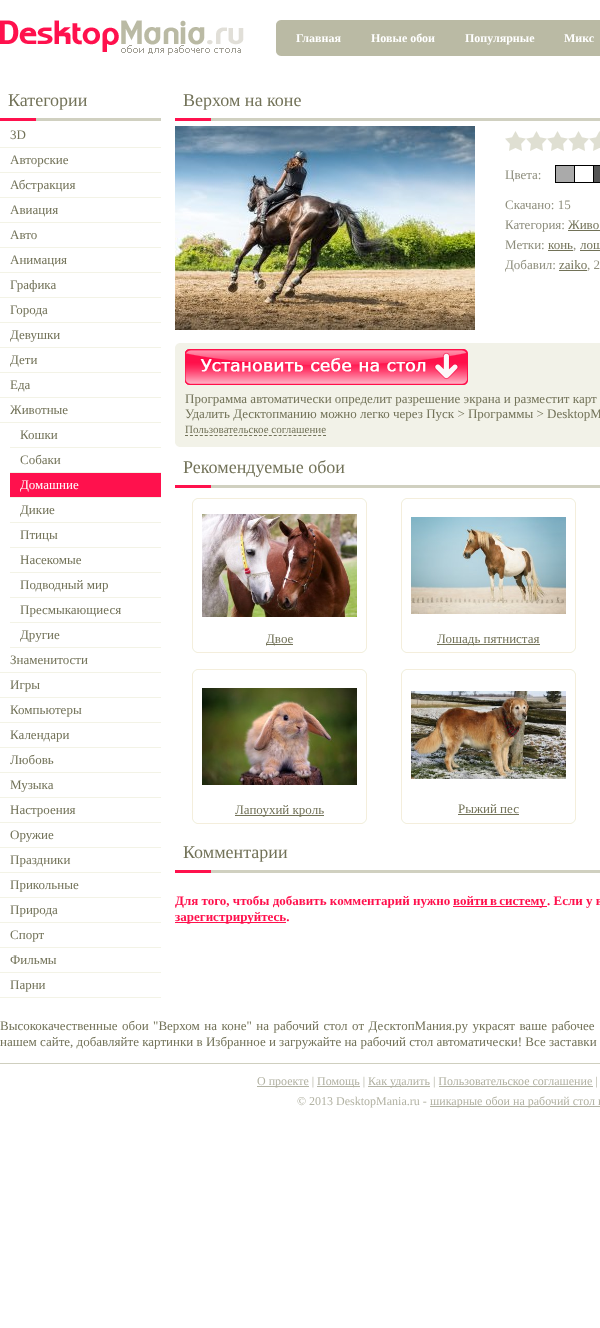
(async () => {
  const canvas = document.querySelector("canvas");
  canvas.width = 600;
  canvas.height = 1328;
  const ctx = canvas.getContext("2d");
  ctx.miterLimit = 4;
  ctx.fontKerning = "normal";
  async function loadImage(src) {
    const img = new Image();
    img.src = src;
    await img.decode();
    return img;
  }
  let path;

  ctx.fillStyle = "#ffffff";
  ctx.fillRect(0, 0, 600, 1328);
  ctx.drawImage(await loadImage("img/1.png"), 0, 20, 244, 35);
  ctx.fillStyle = "#babaa4";
  ctx.fillRect(276, 20, 324, 36);
  ctx.drawImage(await loadImage("img/2.png"), 276, 20, 5, 5);
  ctx.drawImage(await loadImage("img/3.png"), 276, 51, 5, 5);
  for (const [x, y, w, h, color] of [
    [36, 118, 125, 3, "#d0d0c0"],
    [0, 118, 36, 3, "#ff114d"],
    [0, 147, 161, 1, "#f3f3e6"],
    [0, 172, 161, 1, "#f3f3e6"],
    [0, 197, 161, 1, "#f3f3e6"],
    [0, 222, 161, 1, "#f3f3e6"],
    [0, 247, 161, 1, "#f3f3e6"],
    [0, 272, 161, 1, "#f3f3e6"],
    [0, 297, 161, 1, "#f3f3e6"],
    [0, 322, 161, 1, "#f3f3e6"],
    [0, 347, 161, 1, "#f3f3e6"],
    [0, 372, 161, 1, "#f3f3e6"],
    [0, 397, 161, 1, "#f3f3e6"],
    [0, 422, 161, 1, "#f3f3e6"],
    [10, 447, 151, 1, "#f3f3e6"],
    [10, 472, 151, 1, "#f3f3e6"],
    [10, 473, 151, 24, "#ff114d"],
    [10, 497, 151, 1, "#f3f3e6"],
    [10, 522, 151, 1, "#f3f3e6"],
    [10, 547, 151, 1, "#f3f3e6"],
    [10, 572, 151, 1, "#f3f3e6"],
    [10, 597, 151, 1, "#f3f3e6"],
    [10, 622, 151, 1, "#f3f3e6"],
    [10, 647, 151, 1, "#f3f3e6"],
    [0, 672, 161, 1, "#f3f3e6"],
    [0, 697, 161, 1, "#f3f3e6"],
    [0, 722, 161, 1, "#f3f3e6"],
    [0, 747, 161, 1, "#f3f3e6"],
    [0, 772, 161, 1, "#f3f3e6"],
    [0, 797, 161, 1, "#f3f3e6"],
    [0, 822, 161, 1, "#f3f3e6"],
    [0, 847, 161, 1, "#f3f3e6"],
    [0, 872, 161, 1, "#f3f3e6"],
    [0, 897, 161, 1, "#f3f3e6"],
    [0, 922, 161, 1, "#f3f3e6"],
    [0, 947, 161, 1, "#f3f3e6"],
    [0, 972, 161, 1, "#f3f3e6"],
    [0, 997, 161, 1, "#f3f3e6"],
    [211, 118, 389, 3, "#d0d0c0"],
    [175, 118, 36, 3, "#ff114d"],
  ]) {
    ctx.fillStyle = color;
    ctx.fillRect(x, y, w, h);
  }
  ctx.drawImage(await loadImage("img/4.png"), 175, 126, 300, 204);
  ctx.drawImage(await loadImage("img/5.png"), 505, 131, 95, 20);
  for (const [x, y, w, h, color] of [
    [555, 165, 45, 18, "#000000"],
    [556, 166, 18, 16, "#aaaaaa"],
    [575, 166, 18, 16, "#ffffff"],
    [594, 166, 6, 16, "#555555"],
    [568, 230, 32, 1, "#727258"],
    [548, 250, 25, 1, "#727258"],
    [580, 250, 20, 1, "#727258"],
    [559, 270, 28, 1, "#727258"],
    [175, 343, 425, 104, "#f2f2e8"],
  ]) {
    ctx.fillStyle = color;
    ctx.fillRect(x, y, w, h);
  }
  ctx.drawImage(await loadImage("img/6.png"), 175, 343, 4, 4);
  ctx.drawImage(await loadImage("img/7.png"), 185, 349, 283, 36);
  path = new Path2D("M185 435.5H326");
  ctx.strokeStyle = "#727258";
  ctx.setLineDash([3, 1.93]);
  ctx.stroke(path);
  ctx.drawImage(await loadImage("img/8.png"), 175, 443, 4, 4);
  ctx.fillStyle = "#d0d0c0";
  ctx.fillRect(211, 485, 389, 3);
  ctx.fillStyle = "#ff114d";
  ctx.fillRect(175, 485, 36, 3);
  ctx.drawImage(await loadImage("img/9.png"), 192, 498, 175, 155);
  ctx.drawImage(await loadImage("img/10.png"), 202, 514, 155, 103);
  ctx.fillStyle = "#727258";
  ctx.fillRect(266, 644, 27, 1);
  ctx.drawImage(await loadImage("img/9.png"), 401, 498, 175, 155);
  ctx.drawImage(await loadImage("img/11.png"), 411, 517, 155, 97);
  ctx.fillRect(437, 644, 103, 1);
  ctx.drawImage(await loadImage("img/9.png"), 192, 669, 175, 155);
  ctx.drawImage(await loadImage("img/12.png"), 202, 688, 155, 97);
  ctx.fillRect(235, 815, 89, 1);
  ctx.drawImage(await loadImage("img/9.png"), 401, 669, 175, 155);
  ctx.drawImage(await loadImage("img/13.png"), 411, 691, 155, 88);
  for (const [x, y, w, h, color] of [
    [458, 814, 61, 1, "#727258"],
    [211, 870, 389, 3, "#d0d0c0"],
    [175, 870, 36, 3, "#ff114d"],
    [453, 906, 94, 1, "#ff114d"],
    [175, 922, 111, 1, "#ff114d"],
    [0, 1063, 600, 1, "#cfcfbf"],
    [257, 1086, 52, 1, "#b2b2a3"],
    [317, 1086, 43, 1, "#b2b2a3"],
    [368, 1086, 62, 1, "#b2b2a3"],
    [439, 1086, 154, 1, "#b2b2a3"],
    [430, 1106, 170, 1, "#b2b2a3"],
  ]) {
    ctx.fillStyle = color;
    ctx.fillRect(x, y, w, h);
  }
  ctx.font = "bold 12px Liberation Serif";
  ctx.fillStyle = "#ffffff";
  for (const [text, x, y] of [
    ["Главная", 296, 42],
    ["Новые обои", 371, 42],
    ["Популярные", 465, 42],
    ["Микс", 564, 42],
  ]) {
    ctx.fillText(text, x, y);
  }
  ctx.font = "18px Liberation Serif";
  ctx.fillStyle = "#727258";
  ctx.fillText("Категории", 8, 106);
  ctx.font = "13px Liberation Serif";
  for (const [text, x, y] of [
    ["3D", 10, 139],
    ["Авторские", 10, 164],
    ["Абстракция", 10, 189],
    ["Авиация", 10, 214],
    ["Авто", 10, 239],
    ["Анимация", 10, 264],
    ["Графика", 10, 289],
    ["Города", 10, 314],
    ["Девушки", 10, 339],
    ["Дети", 10, 364],
    ["Еда", 10, 389],
    ["Животные", 10, 414],
    ["Кошки", 20, 439],
    ["Собаки", 20, 464],
  ]) {
    ctx.fillText(text, x, y);
  }
  ctx.fillStyle = "#ffffff";
  ctx.fillText("Домашние", 20, 489);
  ctx.fillStyle = "#727258";
  for (const [text, x, y] of [
    ["Дикие", 20, 514],
    ["Птицы", 20, 539],
    ["Насекомые", 20, 564],
    ["Подводный мир", 20, 589],
    ["Пресмыкающиеся", 20, 614],
    ["Другие", 20, 639],
    ["Знаменитости", 10, 664],
    ["Игры", 10, 689],
    ["Компьютеры", 10, 714],
    ["Календари", 10, 739],
    ["Любовь", 10, 764],
    ["Музыка", 10, 789],
    ["Настроения", 10, 814],
    ["Оружие", 10, 839],
    ["Праздники", 10, 864],
    ["Прикольные", 10, 889],
    ["Природа", 10, 914],
    ["Спорт", 10, 939],
    ["Фильмы", 10, 964],
    ["Парни", 10, 989],
  ]) {
    ctx.fillText(text, x, y);
  }
  ctx.font = "18px Liberation Serif";
  ctx.fillText("Верхом на коне", 183, 106);
  ctx.font = "13px Liberation Serif";
  ctx.fillStyle = "#8e8e7d";
  for (const [text, x, y] of [
    ["Цвета:", 505, 179],
    ["Скачано: 15", 505, 209],
    ["Категория:", 505, 229],
  ]) {
    ctx.fillText(text, x, y);
  }
  ctx.fillStyle = "#727258";
  ctx.fillText("Живо", 568, 229);
  ctx.fillStyle = "#8e8e7d";
  ctx.fillText("Метки:", 505, 249);
  ctx.fillStyle = "#727258";
  ctx.fillText("конь", 548, 249);
  ctx.fillStyle = "#8e8e7d";
  ctx.fillText(",", 573, 249);
  ctx.fillStyle = "#727258";
  ctx.fillText("лош", 580, 249);
  ctx.fillStyle = "#8e8e7d";
  ctx.fillText("Добавил:", 505, 269);
  ctx.fillStyle = "#727258";
  ctx.fillText("zaiko", 559, 269);
  ctx.fillStyle = "#8e8e7d";
  ctx.fillText(", 2", 587, 269);
  ctx.fillStyle = "#727258";
  ctx.fillText("Программа автоматически определит разрешение экрана и разместит карт", 185, 403);
  ctx.fillText("Удалить Десктопманию можно легко через Пуск > Программы > DesktopM", 185, 418);
  ctx.font = "11px Liberation Serif";
  ctx.fillText("Пользовательское соглашение", 185, 433);
  ctx.font = "18px Liberation Serif";
  ctx.fillText("Рекомендуемые обои", 183, 473);
  ctx.font = "13px Liberation Serif";
  for (const [text, x, y] of [
    ["Двое", 266, 643],
    ["Лошадь пятнистая", 437, 643],
    ["Лапоухий кроль", 235, 814],
    ["Рыжий пес", 458, 813],
  ]) {
    ctx.fillText(text, x, y);
  }
  ctx.font = "18px Liberation Serif";
  ctx.fillText("Комментарии", 183, 858);
  ctx.font = "bold 13px Liberation Serif";
  ctx.fillStyle = "#ff114d";
  ctx.fillText("Для того, чтобы добавить комментарий нужно", 175, 905);
  ctx.wordSpacing = "-1px";
  ctx.fillText("войти в систему", 453, 905);
  ctx.wordSpacing = "0px";
  ctx.fillText(". Если у в", 547, 905);
  ctx.fillText("зарегистрируйтесь.", 175, 921);
  ctx.wordSpacing = "1.25px";
  ctx.font = "13px Liberation Serif";
  ctx.fillStyle = "#727258";
  ctx.fillText("Высококачественные обои \"Верхом на коне\" на рабочий стол от ДесктопМания.ру украсят ваше рабочее", 0, 1030);
  ctx.wordSpacing = "0px";
  ctx.fillText("нашем сайте, добавляйте картинки в Избранное и загружайте на рабочий стол автоматически! Все заставки", 0, 1046);
  ctx.font = "12px Liberation Serif";
  ctx.fillStyle = "#b2b2a3";
  for (const [text, x, y] of [
    ["О проекте |", 257, 1085],
    ["Помощь |", 317, 1085],
    ["Как удалить | Пользовательское соглашение |", 368, 1085],
    ["© 2013 DesktopMania.ru -", 297, 1105],
    ["шикарные обои на рабочий стол в", 430, 1105],
  ]) {
    ctx.fillText(text, x, y);
  }
})();
